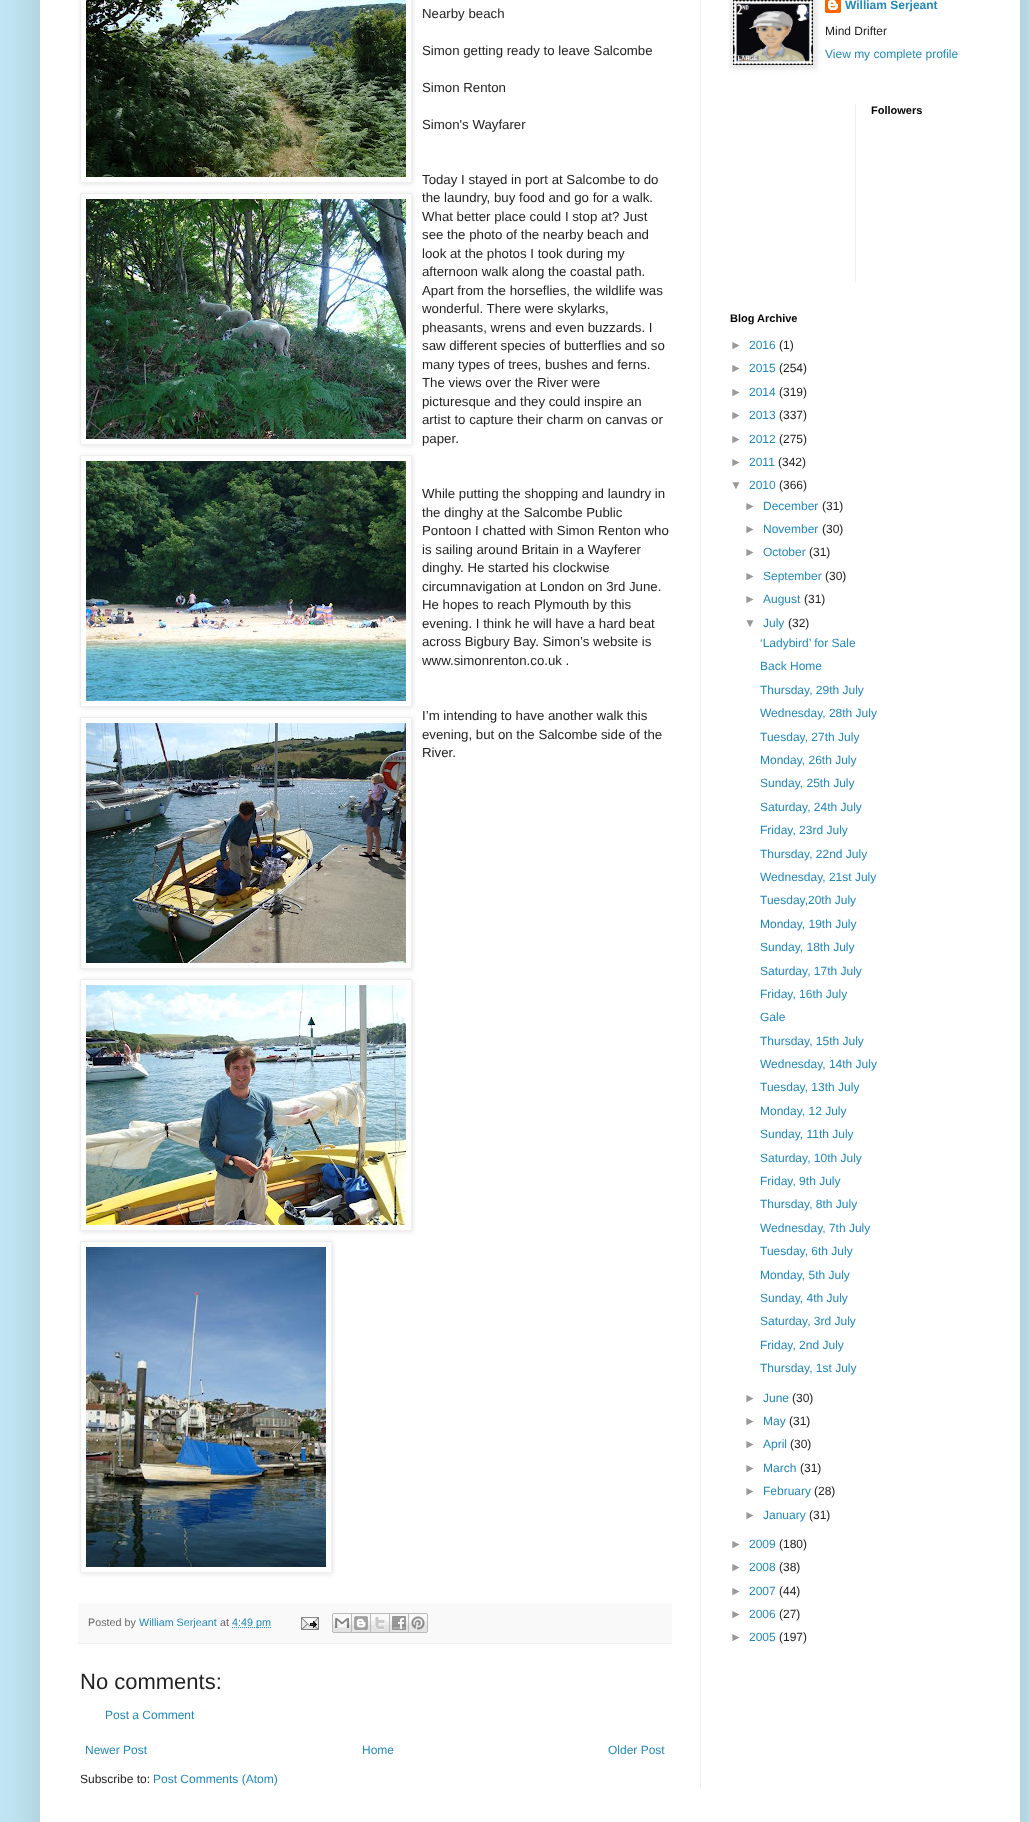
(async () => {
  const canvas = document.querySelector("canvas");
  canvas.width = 1029;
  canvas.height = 1822;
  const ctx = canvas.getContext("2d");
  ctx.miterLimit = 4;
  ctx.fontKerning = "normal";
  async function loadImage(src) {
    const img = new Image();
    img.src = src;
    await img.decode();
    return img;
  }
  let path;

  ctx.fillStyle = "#c1e5f2";
  ctx.fillRect(0, 0, 1029, 1822);
  ctx.fillStyle = "rgba(0, 0, 0, 0.15)";
  ctx.filter = "blur(20px)";
  ctx.beginPath();
  ctx.rect(40, -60, 980, 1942);
  ctx.fill();
  ctx.filter = "none";
  ctx.fillStyle = "#ffffff";
  ctx.fillRect(40, 0, 980, 1822);
  ctx.save();
  path = new Path2D("M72 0H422V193H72ZM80-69H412V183H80Z");
  ctx.clip(path, "evenodd");
  ctx.fillStyle = "rgba(0, 0, 0, 0.1)";
  ctx.filter = "blur(2.5px)";
  ctx.beginPath();
  ctx.rect(81, -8, 332, 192);
  ctx.fill();
  ctx.filter = "none";
  ctx.restore();
  ctx.strokeStyle = "#eeeeee";
  ctx.strokeRect(80.5, -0.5, 331, 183);
  ctx.drawImage(await loadImage("img/1.png"), 86, 0, 320, 177);
  ctx.save();
  path = new Path2D("M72 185H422V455H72ZM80 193H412V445H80Z");
  ctx.clip(path, "evenodd");
  ctx.fillStyle = "rgba(0, 0, 0, 0.1)";
  ctx.filter = "blur(2.5px)";
  ctx.beginPath();
  ctx.rect(81, 194, 332, 252);
  ctx.fill();
  ctx.filter = "none";
  ctx.restore();
  ctx.strokeRect(80.5, 193.5, 331, 251);
  ctx.drawImage(await loadImage("img/2.png"), 86, 199, 320, 240);
  ctx.save();
  path = new Path2D("M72 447H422V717H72ZM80 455H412V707H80Z");
  ctx.clip(path, "evenodd");
  ctx.fillStyle = "rgba(0, 0, 0, 0.1)";
  ctx.filter = "blur(2.5px)";
  ctx.beginPath();
  ctx.rect(81, 456, 332, 252);
  ctx.fill();
  ctx.filter = "none";
  ctx.restore();
  ctx.strokeRect(80.5, 455.5, 331, 251);
  ctx.drawImage(await loadImage("img/3.png"), 86, 461, 320, 240);
  ctx.save();
  path = new Path2D("M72 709H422V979H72ZM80 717H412V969H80Z");
  ctx.clip(path, "evenodd");
  ctx.fillStyle = "rgba(0, 0, 0, 0.1)";
  ctx.filter = "blur(2.5px)";
  ctx.beginPath();
  ctx.rect(81, 718, 332, 252);
  ctx.fill();
  ctx.filter = "none";
  ctx.restore();
  ctx.strokeRect(80.5, 717.5, 331, 251);
  ctx.drawImage(await loadImage("img/4.png"), 86, 723, 320, 240);
  ctx.save();
  path = new Path2D("M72 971H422V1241H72ZM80 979H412V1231H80Z");
  ctx.clip(path, "evenodd");
  ctx.fillStyle = "rgba(0, 0, 0, 0.1)";
  ctx.filter = "blur(2.5px)";
  ctx.beginPath();
  ctx.rect(81, 980, 332, 252);
  ctx.fill();
  ctx.filter = "none";
  ctx.restore();
  ctx.strokeRect(80.5, 979.5, 331, 251);
  ctx.drawImage(await loadImage("img/5.png"), 86, 985, 320, 240);
  ctx.save();
  path = new Path2D("M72 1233H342V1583H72ZM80 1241H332V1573H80Z");
  ctx.clip(path, "evenodd");
  ctx.fillStyle = "rgba(0, 0, 0, 0.1)";
  ctx.filter = "blur(2.5px)";
  ctx.beginPath();
  ctx.rect(81, 1242, 252, 332);
  ctx.fill();
  ctx.filter = "none";
  ctx.restore();
  ctx.strokeRect(80.5, 1241.5, 251, 331);
  ctx.drawImage(await loadImage("img/6.png"), 86, 1247, 240, 320);
  ctx.fillStyle = "#f9f9f9";
  ctx.fillRect(78, 1603, 594, 40);
  ctx.fillStyle = "#eeeeee";
  ctx.fillRect(78, 1643, 594, 1);
  path = new Path2D("M232 1627.5H271");
  ctx.strokeStyle = "#2288bb";
  ctx.setLineDash([1, 1]);
  ctx.stroke(path);
  ctx.drawImage(await loadImage("img/7.png"), 301, 1617, 18, 13);
  ctx.drawImage(await loadImage("img/8.png"), 332, 1613, 20, 20);
  ctx.drawImage(await loadImage("img/9.png"), 352, 1613, 19, 20);
  ctx.drawImage(await loadImage("img/10.png"), 371, 1613, 19, 20);
  ctx.drawImage(await loadImage("img/11.png"), 390, 1613, 19, 20);
  ctx.drawImage(await loadImage("img/12.png"), 409, 1613, 19, 20);
  ctx.drawImage(await loadImage("img/14.png"), 825, 0, 16, 13);
  ctx.fillStyle = "rgba(0, 0, 0, 0.1)";
  ctx.filter = "blur(2.5px)";
  ctx.beginPath();
  ctx.rect(731, -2, 86, 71);
  ctx.fill();
  ctx.filter = "none";
  ctx.strokeStyle = "#eeeeee";
  ctx.setLineDash([]);
  ctx.strokeRect(730.5, -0.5, 85, 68);
  ctx.drawImage(await loadImage("img/13.png"), 733, 0, 80, 65);
  ctx.fillStyle = "#eeeeee";
  ctx.fillRect(855, 104, 1, 178);
  ctx.fillRect(700, 0, 1, 1788);
  ctx.font = "13.25px Liberation Sans";
  ctx.fillStyle = "#222222";
  for (const [text, x, y] of [
    ["Nearby beach", 422, 18],
    ["Simon getting ready to leave Salcombe", 422, 55],
    ["Simon Renton", 422, 92],
    ["Simon's Wayfarer", 422, 129],
    ["Today I stayed in port at Salcombe to do", 422, 184],
    ["the laundry, buy food and go for a walk.", 422, 202],
    ["What better place could I stop at? Just", 422, 221],
    ["see the photo of the nearby beach and", 422, 239],
    ["look at the photos I took during my", 422, 258],
    ["afternoon walk along the coastal path.", 422, 276],
    ["Apart from the horseflies, the wildlife was", 422, 295],
    ["wonderful. There were skylarks,", 422, 313],
    ["pheasants, wrens and even buzzards. I", 422, 332],
    ["saw different species of butterflies and so", 422, 350],
    ["many types of trees, bushes and ferns.", 422, 369],
    ["The views over the River were", 422, 387],
    ["picturesque and they could inspire an", 422, 406],
    ["artist to capture their charm on canvas or", 422, 424],
    ["paper.", 422, 443],
    ["While putting the shopping and laundry in", 422, 498],
    ["the dinghy at the Salcombe Public", 422, 517],
    ["Pontoon I chatted with Simon Renton who", 422, 535],
    ["is sailing around Britain in a Wayferer", 422, 554],
    ["dinghy. He started his clockwise", 422, 572],
    ["circumnavigation at London on 3rd June.", 422, 591],
    ["He hopes to reach Plymouth by this", 422, 609],
    ["evening. I think he will have a hard beat", 422, 628],
    ["across Bigbury Bay. Simon’s website is", 422, 646],
    ["www.simonrenton.co.uk .", 422, 665],
    ["I’m intending to have another walk this", 422, 720],
    ["evening, but on the Salcombe side of the", 422, 739],
    ["River.", 422, 757],
  ]) {
    ctx.fillText(text, x, y);
  }
  ctx.font = "10.75px Liberation Sans";
  ctx.fillStyle = "#666666";
  ctx.fillText("Posted by", 88, 1626);
  ctx.fillStyle = "#2288bb";
  ctx.fillText("William Serjeant", 139, 1626);
  ctx.fillStyle = "#666666";
  ctx.fillText("at", 220, 1626);
  ctx.fillStyle = "#2288bb";
  ctx.fillText("4:49 pm", 232, 1626);
  ctx.font = "22px Liberation Sans";
  ctx.fillStyle = "#222222";
  ctx.fillText("No comments:", 80, 1689);
  ctx.font = "12px Liberation Sans";
  ctx.fillStyle = "#2288bb";
  for (const [text, x, y] of [
    ["Post a Comment", 105, 1719],
    ["Newer Post", 85, 1754],
    ["Home", 362, 1754],
    ["Older Post", 608, 1754],
  ]) {
    ctx.fillText(text, x, y);
  }
  ctx.fillStyle = "#222222";
  ctx.fillText("Subscribe to:", 80, 1783);
  ctx.fillStyle = "#2288bb";
  ctx.fillText("Post Comments (Atom)", 153, 1783);
  ctx.font = "bold 12px Liberation Sans";
  ctx.fillText("William Serjeant", 845, 9);
  ctx.font = "12px Liberation Sans";
  ctx.fillStyle = "#222222";
  ctx.fillText("Mind Drifter", 825, 35);
  ctx.fillStyle = "#2288bb";
  ctx.fillText("View my complete profile", 825, 58);
  ctx.font = "bold 11px Liberation Sans";
  ctx.fillStyle = "#000000";
  ctx.fillText("Followers", 871, 114);
  ctx.fillText("Blog Archive", 730, 322);
  ctx.font = "12px Liberation Sans";
  ctx.fillStyle = "#999999";
  ctx.fillText("►", 730, 349);
  ctx.fillStyle = "#2288bb";
  ctx.fillText("2016", 749, 349);
  ctx.fillStyle = "#222222";
  ctx.fillText("(1)", 779, 349);
  ctx.fillStyle = "#999999";
  ctx.fillText("►", 730, 372);
  ctx.fillStyle = "#2288bb";
  ctx.fillText("2015", 749, 372);
  ctx.fillStyle = "#222222";
  ctx.fillText("(254)", 779, 372);
  ctx.fillStyle = "#999999";
  ctx.fillText("►", 730, 396);
  ctx.fillStyle = "#2288bb";
  ctx.fillText("2014", 749, 396);
  ctx.fillStyle = "#222222";
  ctx.fillText("(319)", 779, 396);
  ctx.fillStyle = "#999999";
  ctx.fillText("►", 730, 419);
  ctx.fillStyle = "#2288bb";
  ctx.fillText("2013", 749, 419);
  ctx.fillStyle = "#222222";
  ctx.fillText("(337)", 779, 419);
  ctx.fillStyle = "#999999";
  ctx.fillText("►", 730, 443);
  ctx.fillStyle = "#2288bb";
  ctx.fillText("2012", 749, 443);
  ctx.fillStyle = "#222222";
  ctx.fillText("(275)", 779, 443);
  ctx.fillStyle = "#999999";
  ctx.fillText("►", 730, 466);
  ctx.fillStyle = "#2288bb";
  ctx.fillText("2011", 749, 466);
  ctx.fillStyle = "#222222";
  ctx.fillText("(342)", 778, 466);
  ctx.fillStyle = "#999999";
  ctx.fillText("▼", 730, 489);
  ctx.fillStyle = "#2288bb";
  ctx.fillText("2010", 749, 489);
  ctx.fillStyle = "#222222";
  ctx.fillText("(366)", 779, 489);
  ctx.fillStyle = "#999999";
  ctx.fillText("►", 744, 510);
  ctx.fillStyle = "#2288bb";
  ctx.fillText("December", 763, 510);
  ctx.fillStyle = "#222222";
  ctx.fillText("(31)", 822, 510);
  ctx.fillStyle = "#999999";
  ctx.fillText("►", 744, 533);
  ctx.fillStyle = "#2288bb";
  ctx.fillText("November", 763, 533);
  ctx.fillStyle = "#222222";
  ctx.fillText("(30)", 822, 533);
  ctx.fillStyle = "#999999";
  ctx.fillText("►", 744, 556);
  ctx.fillStyle = "#2288bb";
  ctx.fillText("October", 763, 556);
  ctx.fillStyle = "#222222";
  ctx.fillText("(31)", 809, 556);
  ctx.fillStyle = "#999999";
  ctx.fillText("►", 744, 580);
  ctx.fillStyle = "#2288bb";
  ctx.fillText("September", 763, 580);
  ctx.fillStyle = "#222222";
  ctx.fillText("(30)", 825, 580);
  ctx.fillStyle = "#999999";
  ctx.fillText("►", 744, 603);
  ctx.fillStyle = "#2288bb";
  ctx.fillText("August", 763, 603);
  ctx.fillStyle = "#222222";
  ctx.fillText("(31)", 804, 603);
  ctx.fillStyle = "#999999";
  ctx.fillText("▼", 744, 627);
  ctx.fillStyle = "#2288bb";
  ctx.fillText("July", 763, 627);
  ctx.fillStyle = "#222222";
  ctx.fillText("(32)", 788, 627);
  ctx.fillStyle = "#2288bb";
  for (const [text, x, y] of [
    ["‘Ladybird’ for Sale", 760, 647],
    ["Back Home", 760, 670],
    ["Thursday, 29th July", 760, 694],
    ["Wednesday, 28th July", 760, 717],
    ["Tuesday, 27th July", 760, 741],
    ["Monday, 26th July", 760, 764],
    ["Sunday, 25th July", 760, 787],
    ["Saturday, 24th July", 760, 811],
    ["Friday, 23rd July", 760, 834],
    ["Thursday, 22nd July", 760, 858],
    ["Wednesday, 21st July", 760, 881],
    ["Tuesday,20th July", 760, 904],
    ["Monday, 19th July", 760, 928],
    ["Sunday, 18th July", 760, 951],
    ["Saturday, 17th July", 760, 975],
    ["Friday, 16th July", 760, 998],
    ["Gale", 760, 1021],
    ["Thursday, 15th July", 760, 1045],
    ["Wednesday, 14th July", 760, 1068],
    ["Tuesday, 13th July", 760, 1091],
    ["Monday, 12 July", 760, 1115],
    ["Sunday, 11th July", 760, 1138],
    ["Saturday, 10th July", 760, 1162],
    ["Friday, 9th July", 760, 1185],
    ["Thursday, 8th July", 760, 1208],
    ["Wednesday, 7th July", 760, 1232],
    ["Tuesday, 6th July", 760, 1255],
    ["Monday, 5th July", 760, 1279],
    ["Sunday, 4th July", 760, 1302],
    ["Saturday, 3rd July", 760, 1325],
    ["Friday, 2nd July", 760, 1349],
    ["Thursday, 1st July", 760, 1372],
  ]) {
    ctx.fillText(text, x, y);
  }
  ctx.fillStyle = "#999999";
  ctx.fillText("►", 744, 1402);
  ctx.fillStyle = "#2288bb";
  ctx.fillText("June", 763, 1402);
  ctx.fillStyle = "#222222";
  ctx.fillText("(30)", 792, 1402);
  ctx.fillStyle = "#999999";
  ctx.fillText("►", 744, 1425);
  ctx.fillStyle = "#2288bb";
  ctx.fillText("May", 763, 1425);
  ctx.fillStyle = "#222222";
  ctx.fillText("(31)", 789, 1425);
  ctx.fillStyle = "#999999";
  ctx.fillText("►", 744, 1448);
  ctx.fillStyle = "#2288bb";
  ctx.fillText("April", 763, 1448);
  ctx.fillStyle = "#222222";
  ctx.fillText("(30)", 790, 1448);
  ctx.fillStyle = "#999999";
  ctx.fillText("►", 744, 1472);
  ctx.fillStyle = "#2288bb";
  ctx.fillText("March", 763, 1472);
  ctx.fillStyle = "#222222";
  ctx.fillText("(31)", 800, 1472);
  ctx.fillStyle = "#999999";
  ctx.fillText("►", 744, 1495);
  ctx.fillStyle = "#2288bb";
  ctx.fillText("February", 763, 1495);
  ctx.fillStyle = "#222222";
  ctx.fillText("(28)", 814, 1495);
  ctx.fillStyle = "#999999";
  ctx.fillText("►", 744, 1519);
  ctx.fillStyle = "#2288bb";
  ctx.fillText("January", 763, 1519);
  ctx.fillStyle = "#222222";
  ctx.fillText("(31)", 809, 1519);
  ctx.fillStyle = "#999999";
  ctx.fillText("►", 730, 1548);
  ctx.fillStyle = "#2288bb";
  ctx.fillText("2009", 749, 1548);
  ctx.fillStyle = "#222222";
  ctx.fillText("(180)", 779, 1548);
  ctx.fillStyle = "#999999";
  ctx.fillText("►", 730, 1571);
  ctx.fillStyle = "#2288bb";
  ctx.fillText("2008", 749, 1571);
  ctx.fillStyle = "#222222";
  ctx.fillText("(38)", 779, 1571);
  ctx.fillStyle = "#999999";
  ctx.fillText("►", 730, 1595);
  ctx.fillStyle = "#2288bb";
  ctx.fillText("2007", 749, 1595);
  ctx.fillStyle = "#222222";
  ctx.fillText("(44)", 779, 1595);
  ctx.fillStyle = "#999999";
  ctx.fillText("►", 730, 1618);
  ctx.fillStyle = "#2288bb";
  ctx.fillText("2006", 749, 1618);
  ctx.fillStyle = "#222222";
  ctx.fillText("(27)", 779, 1618);
  ctx.fillStyle = "#999999";
  ctx.fillText("►", 730, 1641);
  ctx.fillStyle = "#2288bb";
  ctx.fillText("2005", 749, 1641);
  ctx.fillStyle = "#222222";
  ctx.fillText("(197)", 779, 1641);
})();
